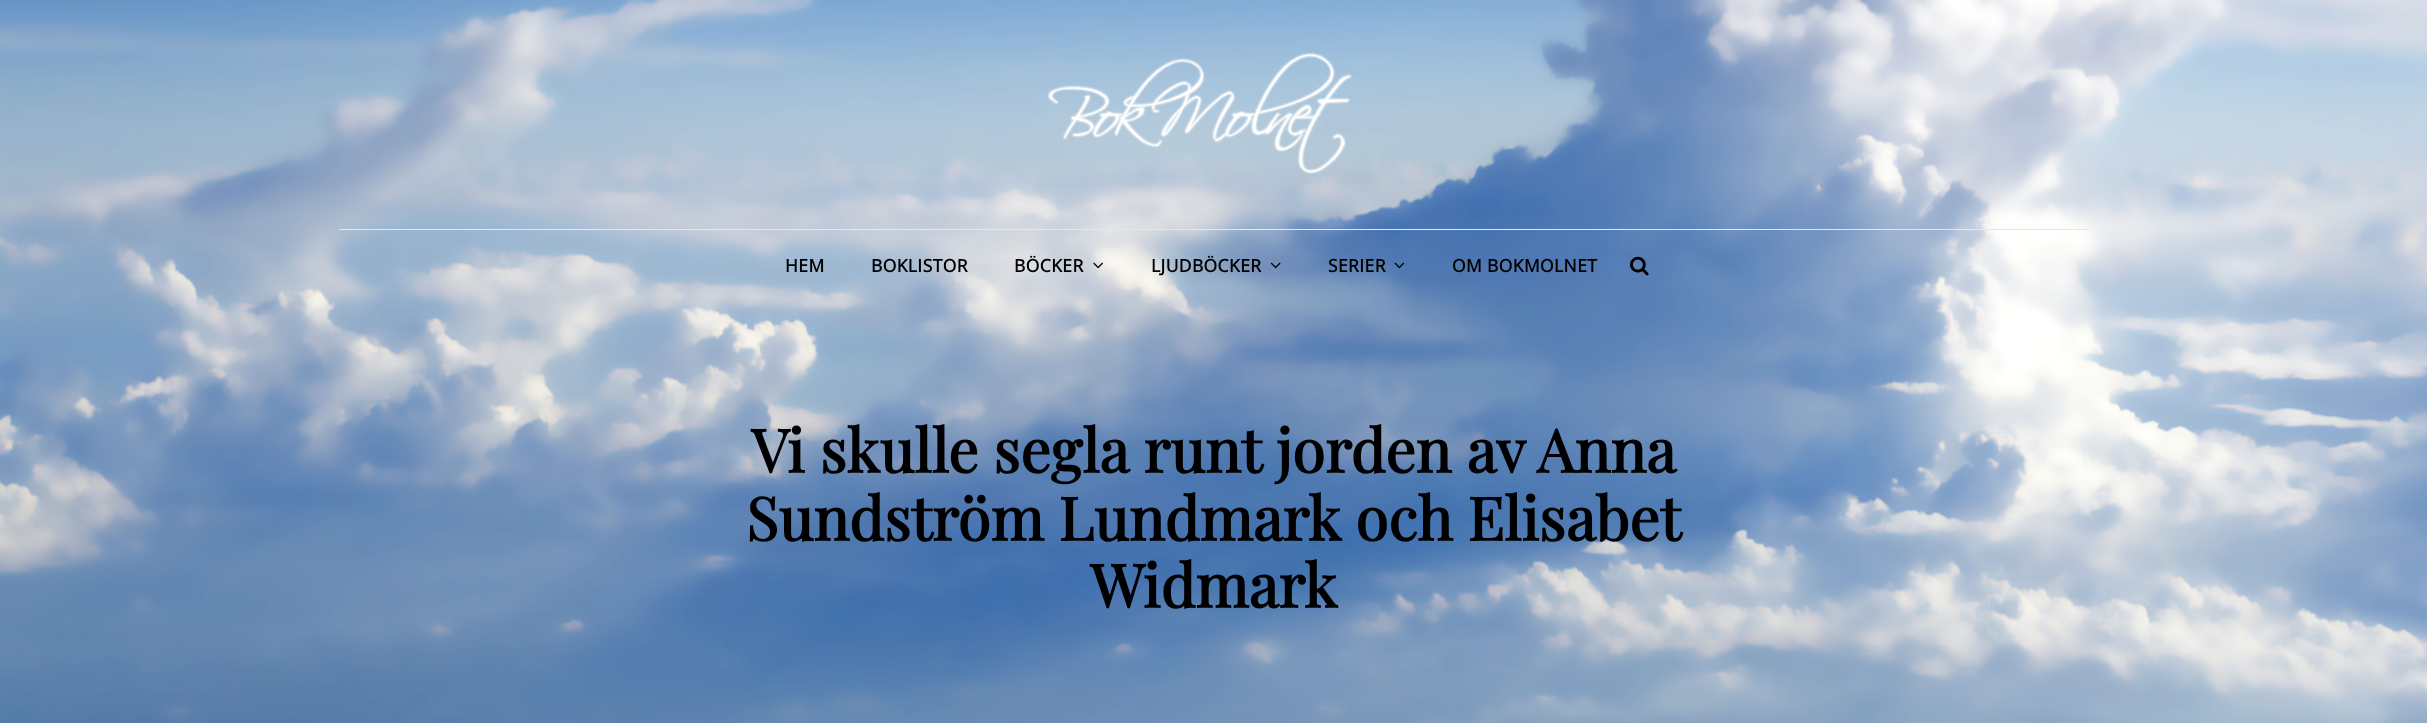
(async () => {
  const canvas = document.querySelector("canvas");
  canvas.width = 2427;
  canvas.height = 723;
  const ctx = canvas.getContext("2d");
  ctx.miterLimit = 4;
  ctx.fontKerning = "normal";
  async function loadImage(src) {
    const img = new Image();
    img.src = src;
    await img.decode();
    return img;
  }

  ctx.fillStyle = "#ffffff";
  ctx.fillRect(0, 0, 2427, 723);
  ctx.drawImage(await loadImage("img/1.png"), 0, 0, 2427, 723);
  ctx.drawImage(await loadImage("img/2.png"), 1047, 52, 305, 122);
  ctx.fillStyle = "#e6e6e6";
  ctx.fillRect(339, 229, 1750, 1);
  ctx.drawImage(await loadImage("img/3.png"), 1093, 262, 10, 7);
  ctx.drawImage(await loadImage("img/4.png"), 1270, 262, 11, 7);
  ctx.drawImage(await loadImage("img/5.png"), 1394, 262, 11, 7);
  ctx.drawImage(await loadImage("img/6.png"), 1630, 256, 19, 20);
  ctx.letterSpacing = "0.4px";
  ctx.font = "bold 17.5px Open Sans";
  ctx.fillStyle = "#000000";
  for (const [text, x, y] of [
    ["HEM", 785, 272],
    ["BOKLISTOR", 871, 272],
    ["BÖCKER", 1014, 272],
    ["LJUDBÖCKER", 1151, 272],
    ["SERIER", 1328, 272],
    ["OM BOKMOLNET", 1452, 272],
  ]) {
    ctx.fillText(text, x, y);
  }
  ctx.letterSpacing = "0px";
  ctx.font = "bold 60px Playfair Display";
  for (const [text, x, y] of [
    ["Vi skulle segla runt jorden av Anna", 751, 473],
    ["Sundström Lundmark och Elisabet", 746, 541],
    ["Widmark", 1090, 608],
  ]) {
    ctx.fillText(text, x, y);
  }
})();
